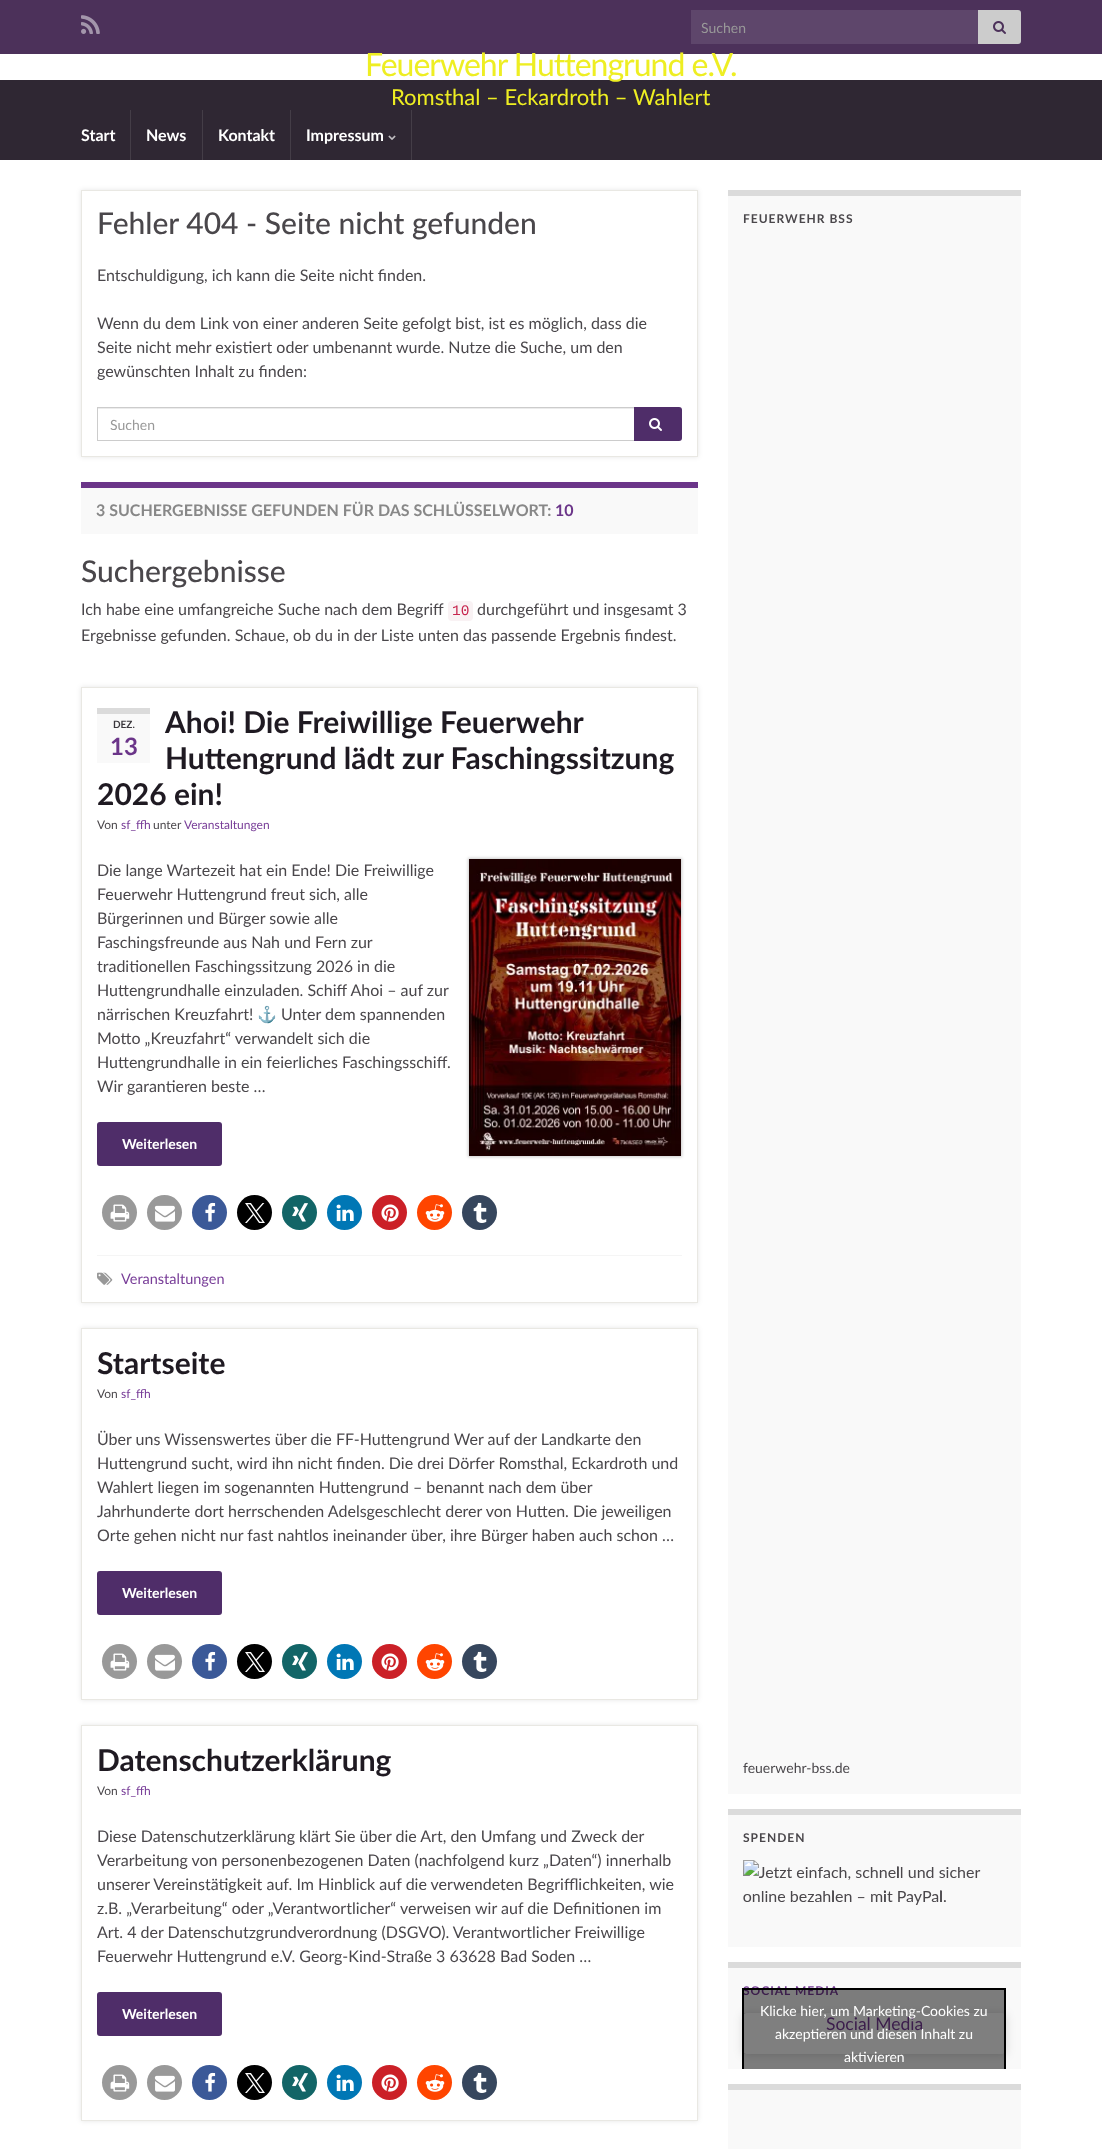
(async () => {
  const canvas = document.querySelector("canvas");
  canvas.width = 1102;
  canvas.height = 2149;
  const ctx = canvas.getContext("2d");
  ctx.miterLimit = 4;
  ctx.fontKerning = "normal";
  async function loadImage(src) {
    const img = new Image();
    img.src = src;
    await img.decode();
    return img;
  }
  let path;

  ctx.fillStyle = "#ffffff";
  ctx.fillRect(0, 0, 1102, 2149);
  ctx.fillStyle = "#4c315a";
  ctx.fillRect(0, 0, 1102, 54);
  ctx.drawImage(await loadImage("img/1.png"), 81, 15, 19, 19);
  ctx.fillStyle = "#5e466b";
  ctx.fillRect(691, 10, 287, 34);
  ctx.fillStyle = "#cccccc";
  ctx.beginPath();
  ctx.roundRect(978, 10, 43, 34, [0, 3, 3, 0]);
  ctx.fill();
  ctx.drawImage(await loadImage("img/2.png"), 993, 21, 13, 13);
  for (const [x, y, w, h, color] of [
    [0, 80, 1102, 80, "#2f2733"],
    [130, 110, 1, 50, "#443d47"],
    [202, 110, 1, 50, "#443d47"],
    [290, 110, 1, 50, "#443d47"],
    [411, 110, 1, 50, "#443d47"],
  ]) {
    ctx.fillStyle = color;
    ctx.fillRect(x, y, w, h);
  }
  ctx.drawImage(await loadImage("img/3.png"), 388, 135, 8, 5);
  ctx.save();
  path = new Path2D("M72 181H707V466H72ZM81 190H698V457H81Z");
  ctx.clip(path, "evenodd");
  ctx.fillStyle = "rgba(0, 0, 0, 0.1)";
  ctx.filter = "blur(2.5px)";
  ctx.beginPath();
  ctx.rect(81, 190, 617, 267);
  ctx.fill();
  ctx.filter = "none";
  ctx.restore();
  ctx.strokeStyle = "#e9e8e3";
  ctx.strokeRect(81.5, 190.5, 616, 266);
  ctx.fillStyle = "#ececec";
  ctx.fillRect(98, 408, 536, 1);
  ctx.strokeStyle = "#cccccc";
  ctx.strokeRect(97.5, 407.5, 537, 33);
  ctx.fillStyle = "#4f2d69";
  ctx.beginPath();
  ctx.roundRect(634, 407, 48, 34, [0, 3, 3, 0]);
  ctx.fill();
  ctx.drawImage(await loadImage("img/4.png"), 649, 418, 13, 13);
  ctx.fillStyle = "#f9f9f9";
  ctx.fillRect(81, 488, 617, 46);
  ctx.fillStyle = "#6b3589";
  ctx.fillRect(81, 482, 617, 6);
  ctx.fillStyle = "#f9f2f4";
  ctx.beginPath();
  ctx.roundRect(448, 601, 25, 20, 4);
  ctx.fill();
  ctx.save();
  path = new Path2D("M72 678H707V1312H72ZM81 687H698V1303H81Z");
  ctx.clip(path, "evenodd");
  ctx.fillStyle = "rgba(0, 0, 0, 0.1)";
  ctx.filter = "blur(2.5px)";
  ctx.beginPath();
  ctx.rect(81, 687, 617, 616);
  ctx.fill();
  ctx.filter = "none";
  ctx.restore();
  ctx.strokeStyle = "#e9e8e3";
  ctx.strokeRect(81.5, 687.5, 616, 615);
  ctx.fillStyle = "#f9f9f9";
  ctx.fillRect(97, 714, 53, 49);
  ctx.fillStyle = "#dbdbdb";
  ctx.fillRect(97, 708, 53, 6);
  ctx.fillStyle = "rgba(0, 0, 0, 0.2)";
  ctx.filter = "blur(1.5px)";
  ctx.beginPath();
  ctx.rect(468, 858, 214, 299);
  ctx.fill();
  ctx.filter = "none";
  ctx.drawImage(await loadImage("img/5.png"), 469, 859, 212, 297);
  ctx.fillStyle = "#4f2d69";
  ctx.beginPath();
  ctx.roundRect(97, 1122, 125, 44, 3);
  ctx.fill();
  ctx.fillStyle = "#999999";
  ctx.beginPath();
  ctx.arc(119.5, 1212.5, 17.5, 0, Math.PI * 2);
  ctx.fill();
  ctx.drawImage(await loadImage("img/6.png"), 110, 1204, 20, 18);
  ctx.beginPath();
  ctx.arc(164.5, 1212.5, 17.5, 0, Math.PI * 2);
  ctx.fill();
  ctx.drawImage(await loadImage("img/7.png"), 154, 1205, 21, 17);
  ctx.fillStyle = "#3b5998";
  ctx.beginPath();
  ctx.arc(209.5, 1212.5, 17.5, 0, Math.PI * 2);
  ctx.fill();
  ctx.drawImage(await loadImage("img/8.png"), 205, 1202, 11, 20);
  ctx.fillStyle = "#000000";
  ctx.beginPath();
  ctx.arc(254.5, 1212.5, 17.5, 0, Math.PI * 2);
  ctx.fill();
  ctx.drawImage(await loadImage("img/9.png"), 245, 1203, 20, 20);
  ctx.fillStyle = "#126567";
  ctx.beginPath();
  ctx.arc(299.5, 1212.5, 17.5, 0, Math.PI * 2);
  ctx.fill();
  ctx.drawImage(await loadImage("img/10.png"), 292, 1203, 16, 19);
  ctx.fillStyle = "#0077b5";
  ctx.beginPath();
  ctx.arc(344.5, 1212.5, 17.5, 0, Math.PI * 2);
  ctx.fill();
  ctx.drawImage(await loadImage("img/11.png"), 336, 1204, 18, 18);
  ctx.fillStyle = "#cb2027";
  ctx.beginPath();
  ctx.arc(389.5, 1212.5, 17.5, 0, Math.PI * 2);
  ctx.fill();
  ctx.drawImage(await loadImage("img/12.png"), 381, 1204, 18, 18);
  ctx.fillStyle = "#ff4500";
  ctx.beginPath();
  ctx.arc(434.5, 1212.5, 17.5, 0, Math.PI * 2);
  ctx.fill();
  ctx.drawImage(await loadImage("img/13.png"), 425, 1204, 20, 18);
  ctx.fillStyle = "#36465d";
  ctx.beginPath();
  ctx.arc(479.5, 1212.5, 17.5, 0, Math.PI * 2);
  ctx.fill();
  ctx.drawImage(await loadImage("img/14.png"), 473, 1202, 14, 21);
  ctx.fillStyle = "#f5f5f5";
  ctx.fillRect(97, 1255, 585, 1);
  ctx.drawImage(await loadImage("img/15.png"), 97, 1272, 16, 13);
  ctx.save();
  path = new Path2D("M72 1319H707V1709H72ZM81 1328H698V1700H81Z");
  ctx.clip(path, "evenodd");
  ctx.fillStyle = "rgba(0, 0, 0, 0.1)";
  ctx.filter = "blur(2.5px)";
  ctx.beginPath();
  ctx.rect(81, 1328, 617, 372);
  ctx.fill();
  ctx.filter = "none";
  ctx.restore();
  ctx.strokeRect(81.5, 1328.5, 616, 371);
  ctx.fillStyle = "#4f2d69";
  ctx.beginPath();
  ctx.roundRect(97, 1571, 125, 44, 3);
  ctx.fill();
  ctx.fillStyle = "#999999";
  ctx.beginPath();
  ctx.arc(119.5, 1661.5, 17.5, 0, Math.PI * 2);
  ctx.fill();
  ctx.drawImage(await loadImage("img/6.png"), 110, 1653, 20, 18);
  ctx.beginPath();
  ctx.arc(164.5, 1661.5, 17.5, 0, Math.PI * 2);
  ctx.fill();
  ctx.drawImage(await loadImage("img/7.png"), 154, 1654, 21, 17);
  ctx.fillStyle = "#3b5998";
  ctx.beginPath();
  ctx.arc(209.5, 1661.5, 17.5, 0, Math.PI * 2);
  ctx.fill();
  ctx.drawImage(await loadImage("img/8.png"), 205, 1651, 11, 20);
  ctx.fillStyle = "#000000";
  ctx.beginPath();
  ctx.arc(254.5, 1661.5, 17.5, 0, Math.PI * 2);
  ctx.fill();
  ctx.drawImage(await loadImage("img/9.png"), 245, 1652, 20, 20);
  ctx.fillStyle = "#126567";
  ctx.beginPath();
  ctx.arc(299.5, 1661.5, 17.5, 0, Math.PI * 2);
  ctx.fill();
  ctx.drawImage(await loadImage("img/10.png"), 292, 1652, 16, 19);
  ctx.fillStyle = "#0077b5";
  ctx.beginPath();
  ctx.arc(344.5, 1661.5, 17.5, 0, Math.PI * 2);
  ctx.fill();
  ctx.drawImage(await loadImage("img/11.png"), 336, 1653, 18, 18);
  ctx.fillStyle = "#cb2027";
  ctx.beginPath();
  ctx.arc(389.5, 1661.5, 17.5, 0, Math.PI * 2);
  ctx.fill();
  ctx.drawImage(await loadImage("img/12.png"), 381, 1653, 18, 18);
  ctx.fillStyle = "#ff4500";
  ctx.beginPath();
  ctx.arc(434.5, 1661.5, 17.5, 0, Math.PI * 2);
  ctx.fill();
  ctx.drawImage(await loadImage("img/13.png"), 425, 1653, 20, 18);
  ctx.fillStyle = "#36465d";
  ctx.beginPath();
  ctx.arc(479.5, 1661.5, 17.5, 0, Math.PI * 2);
  ctx.fill();
  ctx.drawImage(await loadImage("img/14.png"), 473, 1651, 14, 21);
  ctx.save();
  path = new Path2D("M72 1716H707V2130H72ZM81 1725H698V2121H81Z");
  ctx.clip(path, "evenodd");
  ctx.fillStyle = "rgba(0, 0, 0, 0.1)";
  ctx.filter = "blur(2.5px)";
  ctx.beginPath();
  ctx.rect(81, 1725, 617, 396);
  ctx.fill();
  ctx.filter = "none";
  ctx.restore();
  ctx.strokeRect(81.5, 1725.5, 616, 395);
  ctx.fillStyle = "#4f2d69";
  ctx.beginPath();
  ctx.roundRect(97, 1992, 125, 44, 3);
  ctx.fill();
  ctx.fillStyle = "#999999";
  ctx.beginPath();
  ctx.arc(119.5, 2082.5, 17.5, 0, Math.PI * 2);
  ctx.fill();
  ctx.drawImage(await loadImage("img/6.png"), 110, 2074, 20, 18);
  ctx.beginPath();
  ctx.arc(164.5, 2082.5, 17.5, 0, Math.PI * 2);
  ctx.fill();
  ctx.drawImage(await loadImage("img/7.png"), 154, 2075, 21, 17);
  ctx.fillStyle = "#3b5998";
  ctx.beginPath();
  ctx.arc(209.5, 2082.5, 17.5, 0, Math.PI * 2);
  ctx.fill();
  ctx.drawImage(await loadImage("img/8.png"), 205, 2072, 11, 20);
  ctx.fillStyle = "#000000";
  ctx.beginPath();
  ctx.arc(254.5, 2082.5, 17.5, 0, Math.PI * 2);
  ctx.fill();
  ctx.drawImage(await loadImage("img/9.png"), 245, 2073, 20, 20);
  ctx.fillStyle = "#126567";
  ctx.beginPath();
  ctx.arc(299.5, 2082.5, 17.5, 0, Math.PI * 2);
  ctx.fill();
  ctx.drawImage(await loadImage("img/10.png"), 292, 2073, 16, 19);
  ctx.fillStyle = "#0077b5";
  ctx.beginPath();
  ctx.arc(344.5, 2082.5, 17.5, 0, Math.PI * 2);
  ctx.fill();
  ctx.drawImage(await loadImage("img/11.png"), 336, 2074, 18, 18);
  ctx.fillStyle = "#cb2027";
  ctx.beginPath();
  ctx.arc(389.5, 2082.5, 17.5, 0, Math.PI * 2);
  ctx.fill();
  ctx.drawImage(await loadImage("img/12.png"), 381, 2074, 18, 18);
  ctx.fillStyle = "#ff4500";
  ctx.beginPath();
  ctx.arc(434.5, 2082.5, 17.5, 0, Math.PI * 2);
  ctx.fill();
  ctx.drawImage(await loadImage("img/13.png"), 425, 2074, 20, 18);
  ctx.fillStyle = "#36465d";
  ctx.beginPath();
  ctx.arc(479.5, 2082.5, 17.5, 0, Math.PI * 2);
  ctx.fill();
  ctx.drawImage(await loadImage("img/14.png"), 473, 2072, 14, 21);
  for (const [x, y, w, h, color] of [
    [728, 196, 293, 1598, "#f9f9f9"],
    [728, 190, 293, 6, "#dbdbdb"],
    [728, 1815, 293, 132, "#f9f9f9"],
    [728, 1809, 293, 6, "#dbdbdb"],
  ]) {
    ctx.fillStyle = color;
    ctx.fillRect(x, y, w, h);
  }
  ctx.drawImage(await loadImage("img/16.png"), 743, 1860, 238, 45);
  ctx.fillStyle = "#f9f9f9";
  ctx.fillRect(728, 1968, 293, 101);
  ctx.fillStyle = "#dbdbdb";
  ctx.fillRect(728, 1962, 293, 6);
  ctx.fillStyle = "rgba(0, 0, 0, 0.15)";
  ctx.filter = "blur(5px)";
  ctx.beginPath();
  ctx.roundRect(743, 2014, 263, 41, 3);
  ctx.fill();
  ctx.filter = "none";
  ctx.fillStyle = "rgba(0, 0, 0, 0.5)";
  ctx.filter = "blur(0.5px)";
  ctx.beginPath();
  ctx.roundRect(743, 2013, 263, 41, 3);
  ctx.fill();
  ctx.filter = "none";
  ctx.fillStyle = "#ffffff";
  ctx.beginPath();
  ctx.roundRect(743, 2013, 263, 41, 3);
  ctx.fill();
  ctx.fillStyle = "#f9f9f9";
  ctx.fillRect(728, 2090, 293, 59);
  ctx.fillStyle = "#dbdbdb";
  ctx.fillRect(728, 2084, 293, 6);
  ctx.font = "14px Lato";
  ctx.fillStyle = "#999999";
  ctx.fillText("Suchen", 701, 33);
  ctx.letterSpacing = "-1px";
  ctx.font = "32px Lato";
  ctx.fillStyle = "#eeee22";
  ctx.fillText("Feuerwehr Huttengrund e.V.", 365, 76);
  ctx.letterSpacing = "0px";
  ctx.font = "22px Lato";
  ctx.fillText("Romsthal – Eckardroth – Wahlert", 391, 105);
  ctx.font = "bold 16px Lato";
  ctx.fillStyle = "#ffffff";
  for (const [text, x, y] of [
    ["Start", 81, 141],
    ["News", 146, 141],
    ["Kontakt", 218, 141],
    ["Impressum", 306, 141],
  ]) {
    ctx.fillText(text, x, y);
  }
  ctx.font = "500 30px Lato";
  ctx.fillStyle = "#4a474b";
  ctx.fillText("Fehler 404 - Seite nicht gefunden", 97, 234);
  ctx.font = "16px Lato";
  for (const [text, x, y] of [
    ["Entschuldigung, ich kann die Seite nicht finden.", 97, 281],
    ["Wenn du dem Link von einer anderen Seite gefolgt bist, ist es möglich, dass die", 97, 329],
    ["Seite nicht mehr existiert oder umbenannt wurde. Nutze die Suche, um den", 97, 353],
    ["gewünschten Inhalt zu finden:", 97, 377],
  ]) {
    ctx.fillText(text, x, y);
  }
  ctx.font = "14px Lato";
  ctx.fillStyle = "#999999";
  ctx.fillText("Suchen", 110, 430);
  ctx.font = "bold 16px Lato";
  ctx.fillStyle = "#888888";
  ctx.fillText("3 SUCHERGEBNISSE GEFUNDEN FÜR DAS SCHLÜSSELWORT:", 96, 516);
  ctx.fillStyle = "#6b3589";
  ctx.fillText("10", 555, 516);
  ctx.font = "500 30px Lato";
  ctx.fillStyle = "#4a474b";
  ctx.fillText("Suchergebnisse", 81, 582);
  ctx.font = "16px Lato";
  ctx.fillText("Ich habe eine umfangreiche Suche nach dem Begriff", 81, 615);
  ctx.font = "14.5px Liberation Mono";
  ctx.fillStyle = "#c7254e";
  ctx.fillText("10", 452, 615);
  ctx.font = "16px Lato";
  ctx.fillStyle = "#4a474b";
  ctx.fillText("durchgeführt und insgesamt 3", 477, 615);
  ctx.fillText("Ergebnisse gefunden. Schaue, ob du in der Liste unten das passende Ergebnis findest.", 81, 641);
  ctx.font = "bold 30px Lato";
  ctx.fillStyle = "#1f1a22";
  for (const [text, x, y] of [
    ["Ahoi! Die Freiwillige Feuerwehr", 165, 733],
    ["Huttengrund lädt zur Faschingssitzung", 165, 769],
    ["2026 ein!", 97, 805],
  ]) {
    ctx.fillText(text, x, y);
  }
  ctx.font = "bold 10px Lato";
  ctx.fillStyle = "#3b383d";
  ctx.fillText("DEZ.", 113, 728);
  ctx.font = "bold 24px Lato";
  ctx.fillStyle = "#6b3589";
  ctx.fillText("13", 110, 755);
  ctx.font = "12px Lato";
  ctx.fillStyle = "#4a474b";
  ctx.fillText("Von", 97, 829);
  ctx.fillStyle = "#783d98";
  ctx.fillText("sf_ffh", 121, 829);
  ctx.fillStyle = "#4a474b";
  ctx.fillText("unter", 153, 829);
  ctx.fillStyle = "#783d98";
  ctx.fillText("Veranstaltungen", 184, 829);
  ctx.font = "16px Lato";
  ctx.fillStyle = "#4a474b";
  for (const [text, x, y] of [
    ["Die lange Wartezeit hat ein Ende! Die Freiwillige", 97, 876],
    ["Feuerwehr Huttengrund freut sich, alle", 97, 900],
    ["Bürgerinnen und Bürger sowie alle", 97, 924],
    ["Faschingsfreunde aus Nah und Fern zur", 97, 948],
    ["traditionellen Faschingssitzung 2026 in die", 97, 972],
    ["Huttengrundhalle einzuladen. Schiff Ahoi – auf zur", 97, 996],
    ["närrischen Kreuzfahrt!", 97, 1020],
  ]) {
    ctx.fillText(text, x, y);
  }
  ctx.font = "16px Noto Color Emoji";
  ctx.fillText("⚓️", 257, 1020);
  ctx.font = "16px Lato";
  for (const [text, x, y] of [
    ["Unter dem spannenden", 281, 1020],
    ["Motto „Kreuzfahrt“ verwandelt sich die", 97, 1044],
    ["Huttengrundhalle in ein feierliches Faschingsschiff.", 97, 1068],
    ["Wir garantieren beste …", 97, 1092],
  ]) {
    ctx.fillText(text, x, y);
  }
  ctx.font = "bold 14px Lato";
  ctx.fillStyle = "#ffffff";
  ctx.fillText("Weiterlesen", 122, 1149);
  ctx.font = "14.5px Lato";
  ctx.fillStyle = "#783d98";
  ctx.fillText("Veranstaltungen", 121, 1284);
  ctx.font = "bold 30px Lato";
  ctx.fillStyle = "#1f1a22";
  ctx.fillText("Startseite", 97, 1374);
  ctx.font = "12px Lato";
  ctx.fillStyle = "#4a474b";
  ctx.fillText("Von", 97, 1398);
  ctx.fillStyle = "#783d98";
  ctx.fillText("sf_ffh", 121, 1398);
  ctx.font = "16px Lato";
  ctx.fillStyle = "#4a474b";
  for (const [text, x, y] of [
    ["Über uns Wissenswertes über die FF-Huttengrund Wer auf der Landkarte den", 97, 1445],
    ["Huttengrund sucht, wird ihn nicht finden. Die drei Dörfer Romsthal, Eckardroth und", 97, 1469],
    ["Wahlert liegen im sogenannten Huttengrund – benannt nach dem über", 97, 1493],
    ["Jahrhunderte dort herrschenden Adelsgeschlecht derer von Hutten. Die jeweiligen", 97, 1517],
    ["Orte gehen nicht nur fast nahtlos ineinander über, ihre Bürger haben auch schon …", 97, 1541],
  ]) {
    ctx.fillText(text, x, y);
  }
  ctx.font = "bold 14px Lato";
  ctx.fillStyle = "#ffffff";
  ctx.fillText("Weiterlesen", 122, 1598);
  ctx.font = "bold 30px Lato";
  ctx.fillStyle = "#1f1a22";
  ctx.fillText("Datenschutzerklärung", 97, 1771);
  ctx.font = "12px Lato";
  ctx.fillStyle = "#4a474b";
  ctx.fillText("Von", 97, 1795);
  ctx.fillStyle = "#783d98";
  ctx.fillText("sf_ffh", 121, 1795);
  ctx.font = "16px Lato";
  ctx.fillStyle = "#4a474b";
  for (const [text, x, y] of [
    ["Diese Datenschutzerklärung klärt Sie über die Art, den Umfang und Zweck der", 97, 1842],
    ["Verarbeitung von personenbezogenen Daten (nachfolgend kurz „Daten“) innerhalb", 97, 1866],
    ["unserer Vereinstätigkeit auf. Im Hinblick auf die verwendeten Begrifflichkeiten, wie", 97, 1890],
    ["z.B. „Verarbeitung“ oder „Verantwortlicher“ verweisen wir auf die Definitionen im", 97, 1914],
    ["Art. 4 der Datenschutzgrundverordnung (DSGVO). Verantwortlicher Freiwillige", 97, 1938],
    ["Feuerwehr Huttengrund e.V. Georg-Kind-Straße 3 63628 Bad Soden …", 97, 1962],
  ]) {
    ctx.fillText(text, x, y);
  }
  ctx.font = "bold 14px Lato";
  ctx.fillStyle = "#ffffff";
  ctx.fillText("Weiterlesen", 122, 2019);
  ctx.letterSpacing = "1px";
  ctx.font = "bold 12px Lato";
  ctx.fillStyle = "#4a474b";
  ctx.fillText("FEUERWEHR BSS", 743, 223);
  ctx.letterSpacing = "0px";
  ctx.font = "14px Lato";
  ctx.fillText("feuerwehr-bss.de", 743, 1773);
  ctx.letterSpacing = "1px";
  ctx.font = "bold 12px Lato";
  ctx.fillText("SPENDEN", 743, 1842);
  ctx.letterSpacing = "0px";
  ctx.font = "16px Lato";
  for (const [text, x, y] of [
    ["l", 896, 1878],
    ["l", 831, 1902],
    ["i", 883, 1902],
    ["l", 939, 1902],
  ]) {
    ctx.fillText(text, x, y);
  }
  ctx.letterSpacing = "1px";
  ctx.font = "bold 12px Lato";
  ctx.fillStyle = "#783d98";
  ctx.fillText("SOCIAL MEDIA", 743, 1995);
  ctx.letterSpacing = "0px";
  ctx.font = "17.5px Lato";
  ctx.fillText("Social Media", 826, 2030);
  ctx.fillStyle = "rgba(0, 0, 0, 0.5)";
  ctx.fillRect(744, 1990, 260, 79);
  ctx.save();
  ctx.beginPath();
  ctx.rect(728, 1968, 293, 101);
  ctx.clip();
  ctx.strokeStyle = "#000000";
  ctx.lineWidth = 2;
  ctx.strokeRect(743, 1989, 262, 91);
  ctx.restore();
  ctx.font = "14px Lato";
  ctx.fillStyle = "#ffffff";
  for (const [text, x, y] of [
    ["aktivieren", 844, 2062],
    ["akzeptieren und diesen Inhalt zu", 775, 2039],
    ["Klicke hier, um Marketing-Cookies zu", 760, 2016],
  ]) {
    ctx.fillText(text, x, y);
  }
})();
